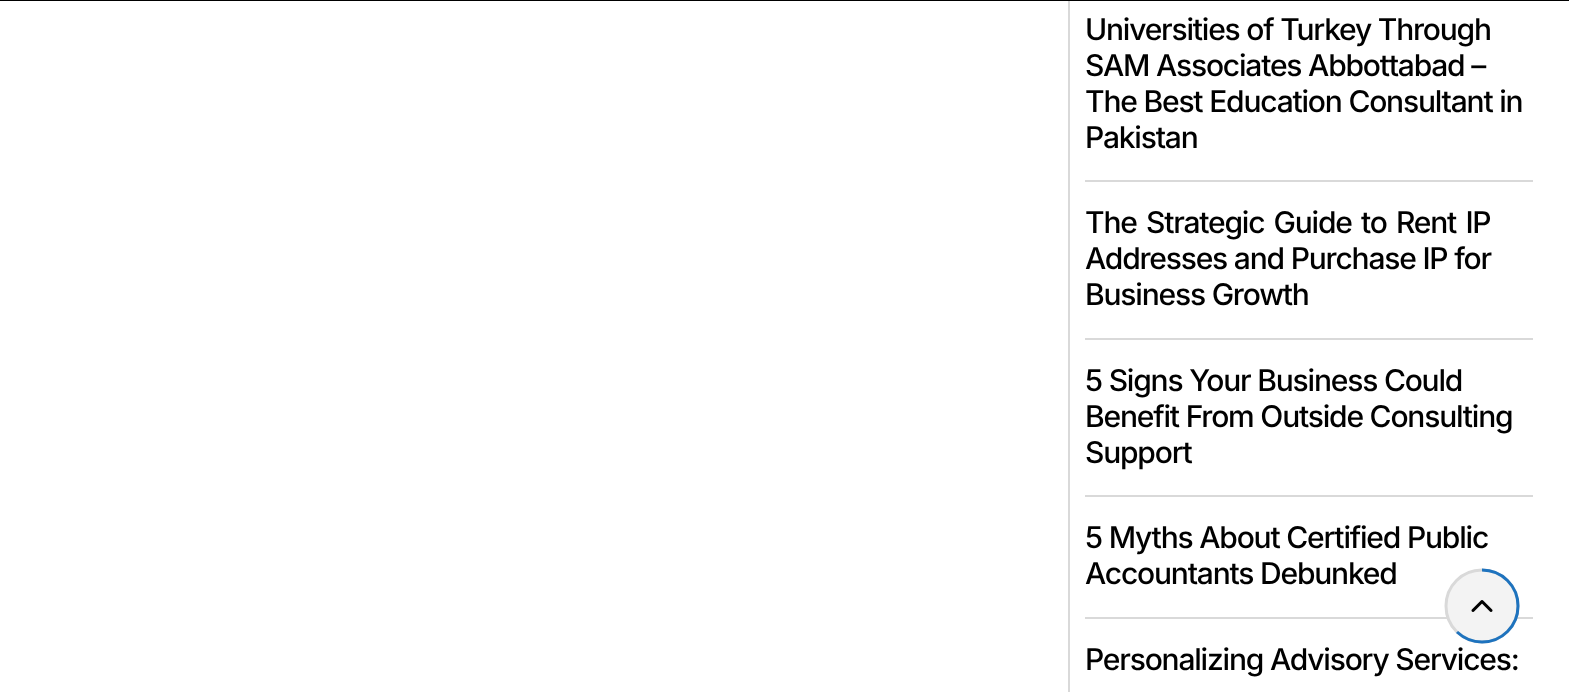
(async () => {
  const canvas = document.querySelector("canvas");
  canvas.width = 1591;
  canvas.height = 692;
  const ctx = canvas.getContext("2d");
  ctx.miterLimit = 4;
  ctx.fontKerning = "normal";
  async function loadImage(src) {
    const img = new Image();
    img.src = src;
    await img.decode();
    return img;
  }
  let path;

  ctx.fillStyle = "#ffffff";
  ctx.fillRect(0, 0, 1591, 692);
  for (const [x, y, w, h, color] of [
    [1068, 0, 2, 692, "#d9d9d9"],
    [0, 0, 1569, 1, "#000000"],
    [1085, 180, 448, 2, "#d9d9d9"],
    [1085, 338, 448, 2, "#d9d9d9"],
    [1085, 495, 448, 2, "#d9d9d9"],
    [1085, 617, 448, 2, "#d9d9d9"],
  ]) {
    ctx.fillStyle = color;
    ctx.fillRect(x, y, w, h);
  }
  ctx.fillStyle = "#f3f3f3";
  ctx.beginPath();
  ctx.arc(1482, 606, 36, 0, Math.PI * 2);
  ctx.fill();
  ctx.drawImage(await loadImage("img/1.png"), 1471, 600, 22, 12);
  path = new Path2D("M1482 570C1502 570 1518 586 1518 606C1518 626 1502 642 1482 642C1462 642 1446 626 1446 606C1446 586 1462 570 1482 570");
  ctx.strokeStyle = "#d9d9d9";
  ctx.lineWidth = 3;
  ctx.stroke(path);
  path = new Path2D("M1482 570C1502 570 1518 586 1518 606C1518 626 1502 642 1482 642C1472.5 642 1463.5 638 1457 632");
  ctx.strokeStyle = "#1e73be";
  ctx.stroke(path);
  ctx.letterSpacing = "-1.2px";
  ctx.font = "500 30px Inter";
  ctx.fillStyle = "#000000";
  for (const [text, x, y] of [
    ["Universities of Turkey Through", 1085, 40],
    ["SAM Associates Abbottabad –", 1085, 76],
    ["The Best Education Consultant in", 1085, 112],
    ["Pakistan", 1085, 148],
  ]) {
    ctx.fillText(text, x, y);
  }
  ctx.wordSpacing = "2.5px";
  ctx.fillText("The‍‌‍‍‌‍‌‍‍‌ Strategic Guide to Rent IP", 1085, 233);
  ctx.wordSpacing = "0px";
  for (const [text, x, y] of [
    ["Addresses and Purchase IP for", 1085, 269],
    ["Business Growth", 1085, 305],
    ["5 Signs Your Business Could", 1085, 391],
    ["Benefit From Outside Consulting", 1085, 427],
    ["Support", 1085, 463],
    ["5 Myths About Certified Public", 1085, 548],
    ["Accountants Debunked", 1085, 584],
    ["Personalizing Advisory Services:", 1085, 670],
  ]) {
    ctx.fillText(text, x, y);
  }
})();
